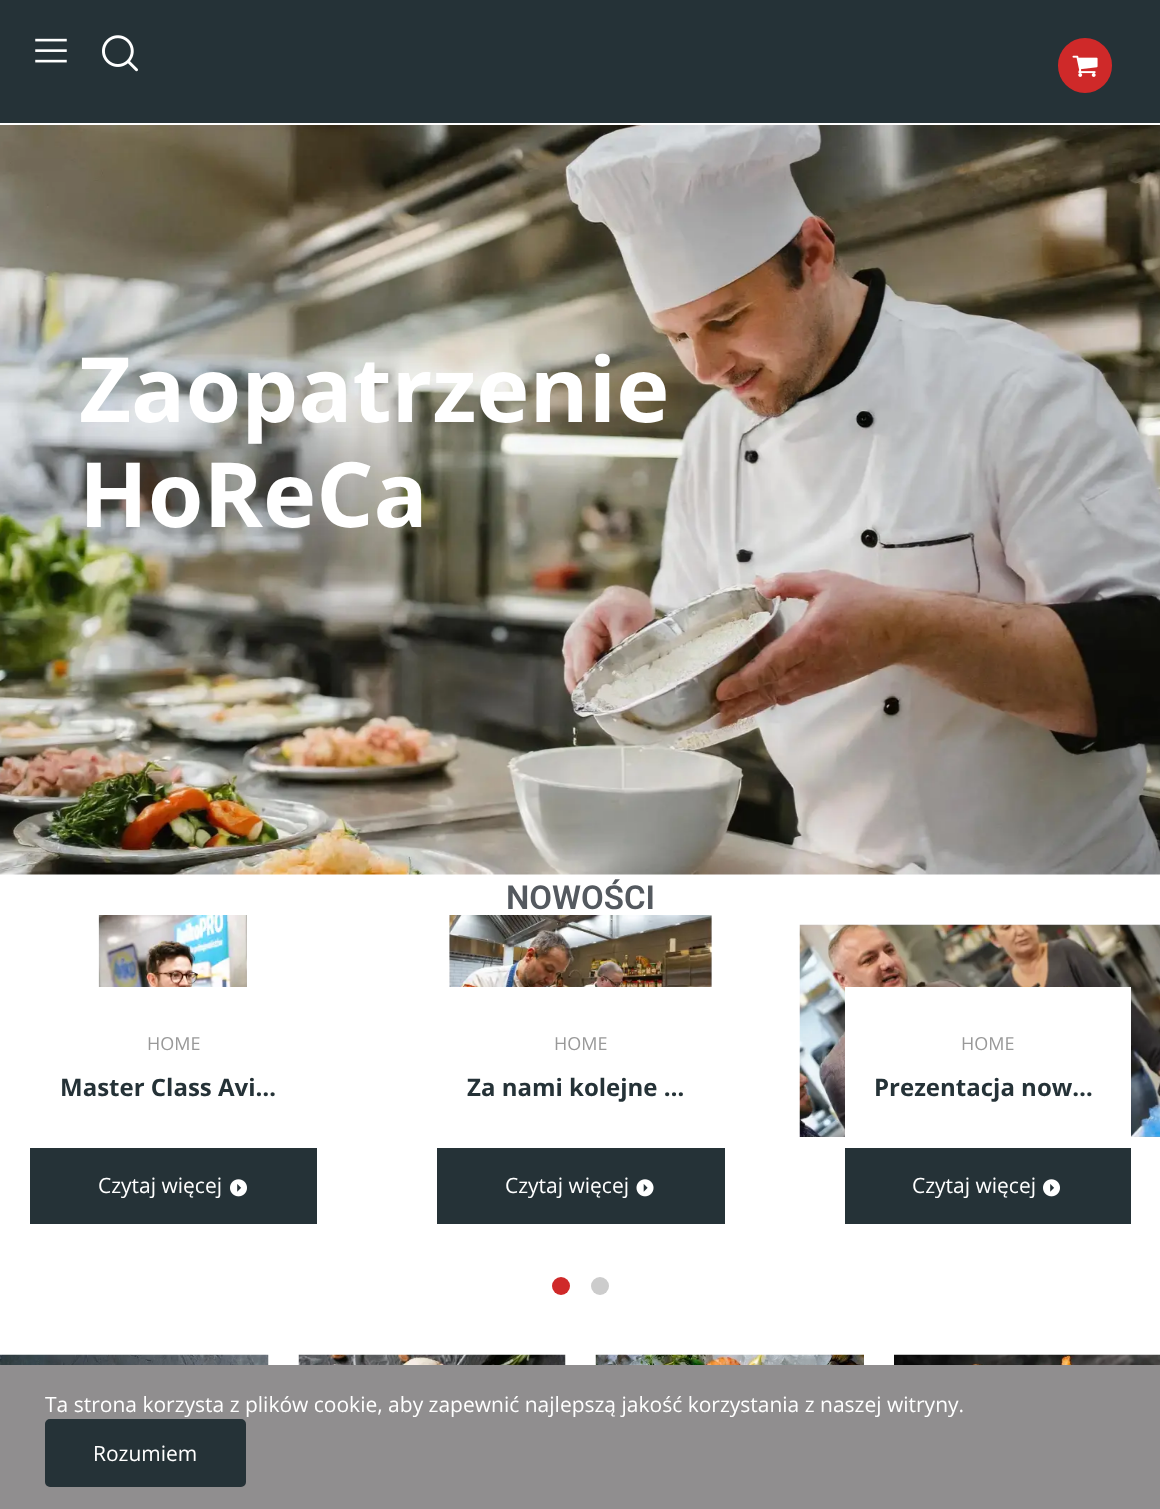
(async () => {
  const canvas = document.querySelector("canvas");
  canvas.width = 1160;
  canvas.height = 1509;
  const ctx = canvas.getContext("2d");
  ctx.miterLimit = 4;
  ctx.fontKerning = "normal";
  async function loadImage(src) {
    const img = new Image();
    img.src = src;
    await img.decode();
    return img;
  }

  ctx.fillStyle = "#ffffff";
  ctx.fillRect(0, 0, 1160, 1509);
  ctx.fillStyle = "#253237";
  ctx.fillRect(0, 0, 1160, 123);
  ctx.drawImage(await loadImage("img/1.png"), 35, 38, 32, 25);
  ctx.drawImage(await loadImage("img/2.png"), 102, 35, 36, 37);
  ctx.fillStyle = "#cf2929";
  ctx.beginPath();
  ctx.roundRect(1058, 38, 54, 55, 27);
  ctx.fill();
  ctx.drawImage(await loadImage("img/3.png"), 1072, 55, 26, 22);
  ctx.drawImage(await loadImage("img/4.png"), 0, 125, 1160, 750);
  ctx.drawImage(await loadImage("img/5.png"), 98, 915, 149, 72);
  ctx.fillStyle = "#253237";
  ctx.fillRect(30, 1148, 287, 76);
  ctx.drawImage(await loadImage("img/6.png"), 230, 1179, 17, 18);
  ctx.drawImage(await loadImage("img/7.png"), 449, 915, 263, 72);
  ctx.fillRect(437, 1148, 288, 76);
  ctx.drawImage(await loadImage("img/8.png"), 636, 1179, 18, 18);
  ctx.drawImage(await loadImage("img/9.png"), 799, 924, 361, 213);
  ctx.fillStyle = "#ffffff";
  ctx.fillRect(845, 987, 286, 150);
  ctx.fillStyle = "#253237";
  ctx.fillRect(845, 1148, 286, 76);
  ctx.drawImage(await loadImage("img/6.png"), 1043, 1179, 17, 18);
  ctx.fillStyle = "#cf2929";
  ctx.beginPath();
  ctx.arc(561, 1286, 9, 0, Math.PI * 2);
  ctx.fill();
  ctx.fillStyle = "#cccccc";
  ctx.beginPath();
  ctx.arc(600, 1286, 9, 0, Math.PI * 2);
  ctx.fill();
  ctx.drawImage(await loadImage("img/10.png"), 0, 1354, 269, 11);
  ctx.drawImage(await loadImage("img/11.png"), 298, 1354, 268, 11);
  ctx.drawImage(await loadImage("img/12.png"), 595, 1354, 269, 11);
  ctx.drawImage(await loadImage("img/13.png"), 894, 1354, 266, 11);
  ctx.fillStyle = "#908e8f";
  ctx.fillRect(0, 1365, 1160, 144);
  ctx.fillStyle = "#253237";
  ctx.beginPath();
  ctx.roundRect(46.5, 1420.5, 198, 65, 3.5);
  ctx.fill();
  ctx.strokeStyle = "#253237";
  ctx.lineWidth = 3;
  ctx.stroke();
  ctx.font = "bold 90px Open Sans";
  ctx.fillStyle = "#ffffff";
  ctx.fillText("Zaopatrzenie", 79, 422);
  ctx.fillText("HoReCa", 79, 527);
  ctx.font = "600 33px Roboto";
  ctx.fillStyle = "#54595f";
  ctx.fillText("NOWOŚCI", 506, 909);
  ctx.font = "18px Open Sans";
  ctx.fillStyle = "#999999";
  ctx.fillText("HOME", 147, 1050);
  ctx.font = "bold 24px Open Sans";
  ctx.fillStyle = "#253237";
  ctx.fillText("Master Class Avi…", 60, 1096);
  ctx.font = "21px Open Sans";
  ctx.fillStyle = "#ffffff";
  ctx.fillText("Czytaj więcej", 98, 1193);
  ctx.font = "18px Open Sans";
  ctx.fillStyle = "#999999";
  ctx.fillText("HOME", 554, 1050);
  ctx.font = "bold 24px Open Sans";
  ctx.fillStyle = "#253237";
  ctx.fillText("Za nami kolejne …", 467, 1096);
  ctx.font = "21px Open Sans";
  ctx.fillStyle = "#ffffff";
  ctx.fillText("Czytaj więcej", 505, 1193);
  ctx.font = "18px Open Sans";
  ctx.fillStyle = "#999999";
  ctx.fillText("HOME", 961, 1050);
  ctx.font = "bold 24px Open Sans";
  ctx.fillStyle = "#253237";
  ctx.fillText("Prezentacja now…", 874, 1096);
  ctx.font = "21px Open Sans";
  ctx.fillStyle = "#ffffff";
  for (const [text, x, y] of [
    ["Czytaj więcej", 912, 1193],
    ["Ta strona korzysta z plików cookie, aby zapewnić najlepszą jakość korzystania z naszej witryny.", 45, 1412],
    ["Rozumiem", 93, 1461],
  ]) {
    ctx.fillText(text, x, y);
  }
})();
